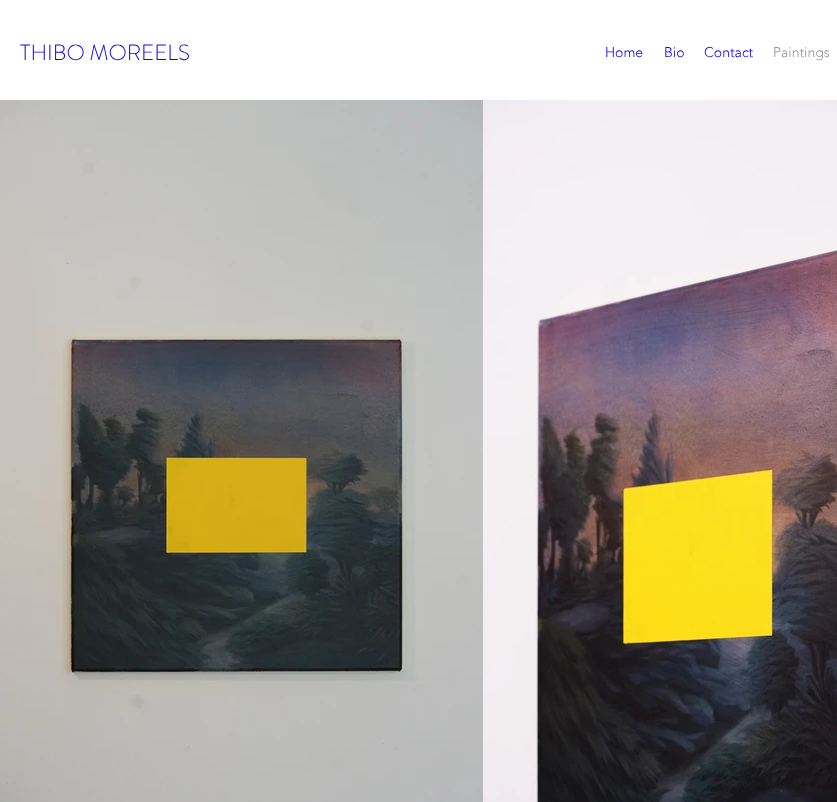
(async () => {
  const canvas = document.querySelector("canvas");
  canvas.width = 837;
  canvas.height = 802;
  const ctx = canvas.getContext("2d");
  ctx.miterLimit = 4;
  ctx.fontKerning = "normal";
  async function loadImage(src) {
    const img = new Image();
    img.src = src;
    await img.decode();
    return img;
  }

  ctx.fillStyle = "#ffffff";
  ctx.fillRect(0, 0, 837, 802);
  ctx.drawImage(await loadImage("img/1.png"), 0, 100, 483, 702);
  ctx.drawImage(await loadImage("img/2.png"), 483, 100, 354, 702);
  ctx.font = "300 22px 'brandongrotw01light'";
  ctx.fillStyle = "#0f03ec";
  ctx.fillText("THIBO MOREELS", 20, 60);
  ctx.font = "300 14px 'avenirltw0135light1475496'";
  for (const [text, x, y] of [
    ["Home", 605, 57],
    ["Bio", 664, 57],
    ["Contact", 704, 57],
  ]) {
    ctx.fillText(text, x, y);
  }
  ctx.fillStyle = "#989898";
  ctx.fillText("Paintings", 773, 57);
})();
